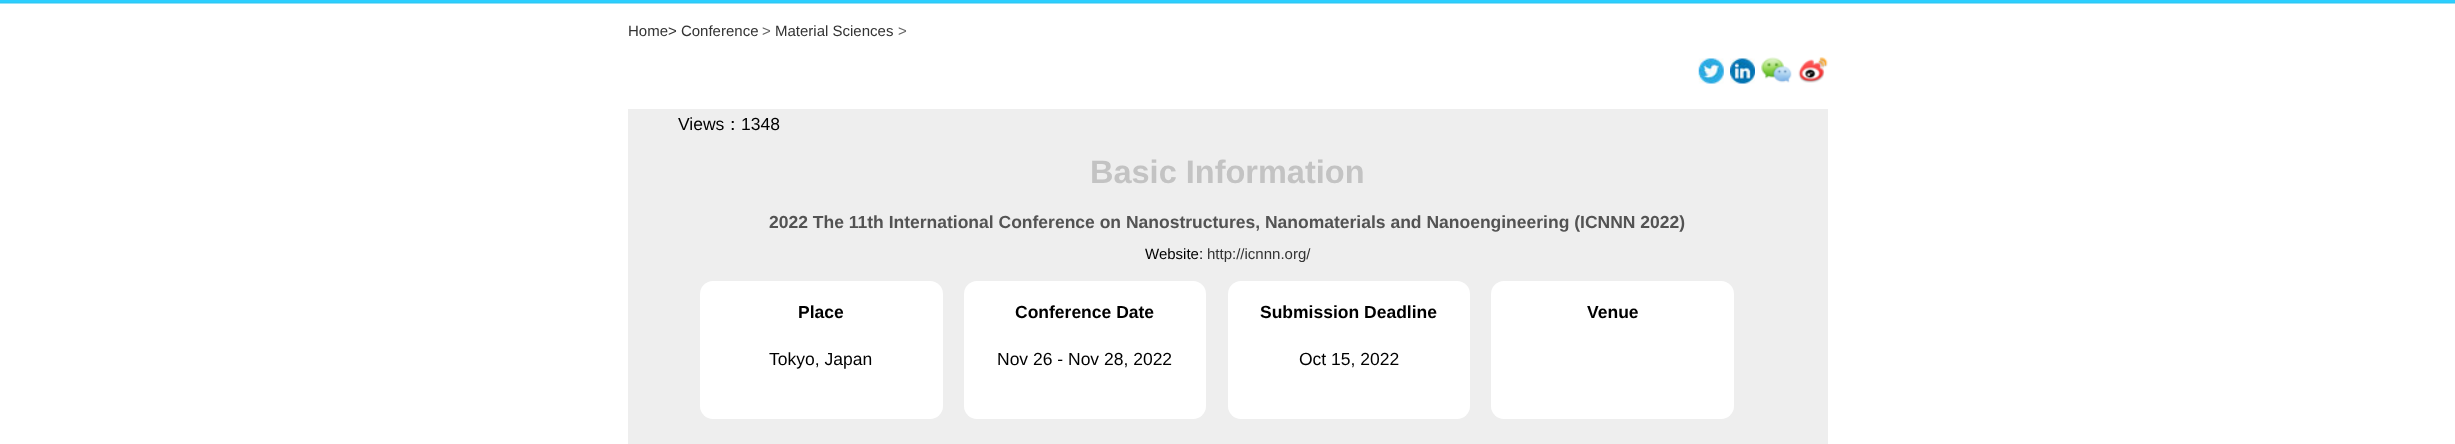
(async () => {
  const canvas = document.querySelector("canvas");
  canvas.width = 2455;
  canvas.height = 444;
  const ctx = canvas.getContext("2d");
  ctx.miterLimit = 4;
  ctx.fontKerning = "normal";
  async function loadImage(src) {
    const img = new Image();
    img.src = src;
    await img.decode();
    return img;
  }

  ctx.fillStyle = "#ffffff";
  ctx.fillRect(0, 0, 2455, 444);
  ctx.drawImage(await loadImage("img/1.png"), 0, 0, 2455, 4);
  ctx.drawImage(await loadImage("img/2.png"), 1698, 58, 26, 26);
  ctx.drawImage(await loadImage("img/3.png"), 1730, 58, 25, 26);
  ctx.drawImage(await loadImage("img/4.png"), 1761, 57, 31, 26);
  ctx.drawImage(await loadImage("img/5.png"), 1798, 57, 30, 26);
  ctx.fillStyle = "#eeeeee";
  ctx.fillRect(628, 109, 1200, 335);
  ctx.fillStyle = "#ffffff";
  ctx.beginPath();
  ctx.roundRect(700, 281, 243, 138, 13);
  ctx.fill();
  ctx.beginPath();
  ctx.roundRect(964, 281, 242, 138, 13);
  ctx.fill();
  ctx.beginPath();
  ctx.roundRect(1228, 281, 242, 138, 13);
  ctx.fill();
  ctx.beginPath();
  ctx.roundRect(1491, 281, 243, 138, 13);
  ctx.fill();
  ctx.font = "15px Liberation Sans";
  ctx.fillStyle = "#333333";
  ctx.fillText("Home> Conference", 628, 36);
  ctx.fillStyle = "#666666";
  ctx.fillText(">", 762, 36);
  ctx.fillStyle = "#333333";
  ctx.fillText("Material Sciences", 775, 36);
  ctx.fillStyle = "#666666";
  ctx.fillText(">", 898, 36);
  ctx.font = "17.5px Liberation Sans";
  ctx.fillStyle = "#000000";
  ctx.fillText("Views", 678, 130);
  ctx.font = "500 17.5px WenQuanYi Zen Hei";
  ctx.fillText("：", 724, 130);
  ctx.font = "17.5px Liberation Sans";
  ctx.fillText("1348", 741, 130);
  ctx.font = "bold 32.5px Liberation Sans";
  ctx.fillStyle = "#c3c3c3";
  ctx.fillText("Basic Information", 1090, 183);
  ctx.font = "bold 17.5px Liberation Sans";
  ctx.fillStyle = "#535353";
  ctx.fillText("2022 The 11th International Conference on Nanostructures, Nanomaterials and Nanoengineering (ICNNN 2022)", 769, 228);
  ctx.font = "15px Liberation Sans";
  ctx.fillStyle = "#000000";
  ctx.fillText("Website:", 1145, 259);
  ctx.fillStyle = "#333333";
  ctx.fillText("http://icnnn.org/", 1207, 259);
  ctx.font = "bold 17.5px Liberation Sans";
  ctx.fillStyle = "#000000";
  ctx.fillText("Place", 798, 318);
  ctx.font = "17.5px Liberation Sans";
  ctx.fillText("Tokyo, Japan", 769, 365);
  ctx.font = "bold 17.5px Liberation Sans";
  ctx.fillText("Conference Date", 1015, 318);
  ctx.font = "17.5px Liberation Sans";
  ctx.fillText("Nov 26 - Nov 28, 2022", 997, 365);
  ctx.font = "bold 17.5px Liberation Sans";
  ctx.fillText("Submission Deadline", 1260, 318);
  ctx.font = "17.5px Liberation Sans";
  ctx.fillText("Oct 15, 2022", 1299, 365);
  ctx.font = "bold 17.5px Liberation Sans";
  ctx.fillText("Venue", 1587, 318);
})();
